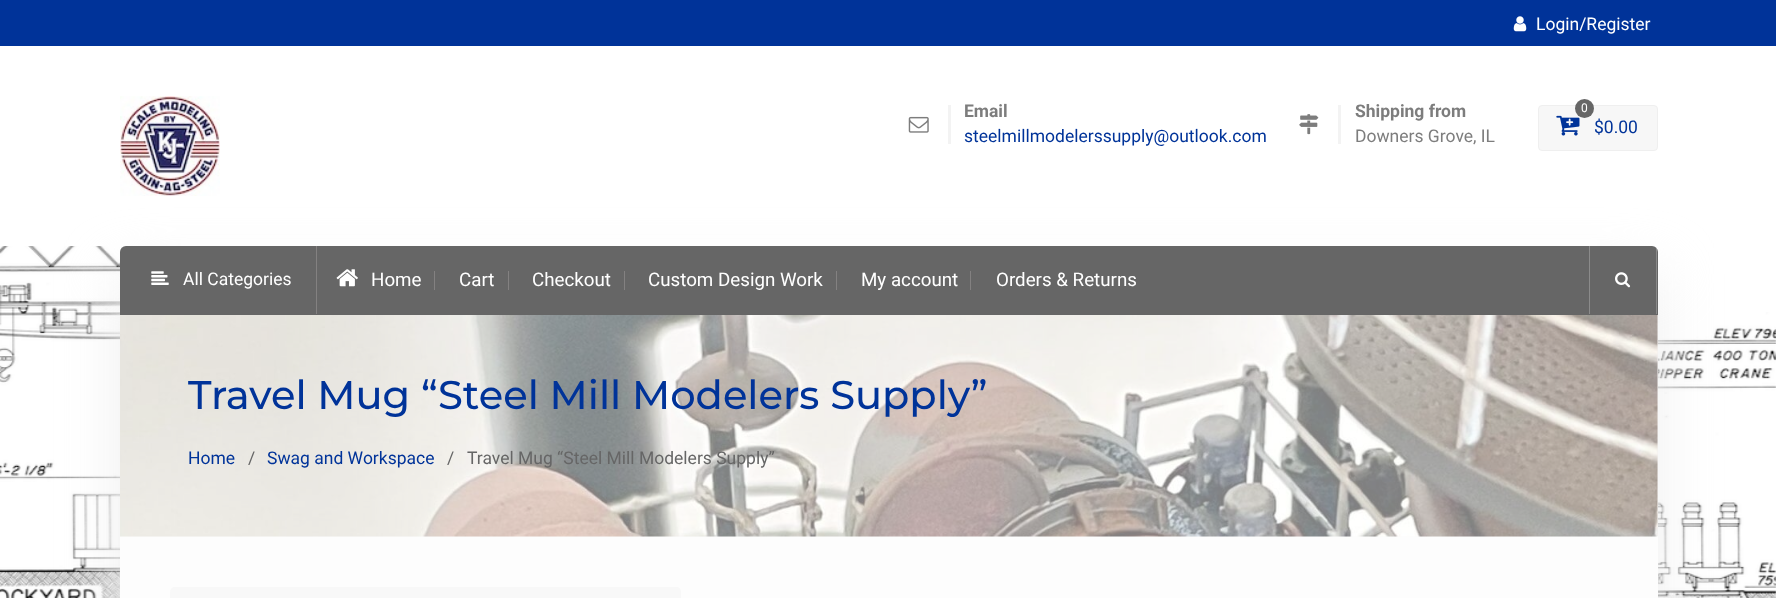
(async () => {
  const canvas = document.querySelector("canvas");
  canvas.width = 1776;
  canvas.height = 598;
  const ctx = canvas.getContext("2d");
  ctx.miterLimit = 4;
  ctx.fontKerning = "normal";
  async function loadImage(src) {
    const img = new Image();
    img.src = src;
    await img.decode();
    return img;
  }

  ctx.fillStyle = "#ffffff";
  ctx.fillRect(0, 0, 1776, 598);
  ctx.drawImage(await loadImage("img/1.png"), 0, 246, 1776, 352);
  ctx.fillStyle = "#003399";
  ctx.fillRect(0, 0, 1776, 46);
  ctx.drawImage(await loadImage("img/2.png"), 1513, 16, 14, 16);
  ctx.fillStyle = "#efefef";
  ctx.filter = "blur(27.5px)";
  ctx.beginPath();
  ctx.rect(120, 274, 1538, 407);
  ctx.fill();
  ctx.filter = "none";
  ctx.drawImage(await loadImage("img/3.png"), 120, 96, 100, 100);
  ctx.fillStyle = "#f3f3f3";
  ctx.fillRect(948, 105, 3, 39);
  ctx.drawImage(await loadImage("img/4.png"), 908, 116, 21, 17);
  ctx.fillRect(1338, 105, 3, 39);
  ctx.drawImage(await loadImage("img/5.png"), 1299, 114, 20, 21);
  ctx.fillStyle = "#f7f7f7";
  ctx.beginPath();
  ctx.roundRect(1538.5, 105.5, 119, 45, 3.5);
  ctx.fill();
  ctx.strokeStyle = "#efefef";
  ctx.stroke();
  ctx.drawImage(await loadImage("img/6.png"), 1556, 115, 24, 21);
  ctx.fillStyle = "#666666";
  ctx.beginPath();
  ctx.arc(1584.5, 108.5, 9.5, 0, Math.PI * 2);
  ctx.fill();
  ctx.beginPath();
  ctx.roundRect(120, 246, 1538, 69, [6, 6, 0, 0]);
  ctx.fill();
  ctx.fillStyle = "#838181";
  ctx.fillRect(316, 246, 1, 68);
  ctx.drawImage(await loadImage("img/7.png"), 151, 271, 18, 14);
  ctx.drawImage(await loadImage("img/8.png"), 336, 269, 22, 18);
  for (const [x, y, w, h, color] of [
    [434, 271, 1, 19, "#838181"],
    [508, 271, 1, 19, "#838181"],
    [624, 271, 1, 19, "#838181"],
    [836, 271, 1, 19, "#838181"],
    [970, 271, 1, 19, "#838181"],
    [1656, 246, 1, 68, "rgba(255, 255, 255, 0.24)"],
    [1589, 246, 1, 68, "#8b8b8b"],
  ]) {
    ctx.fillStyle = color;
    ctx.fillRect(x, y, w, h);
  }
  ctx.drawImage(await loadImage("img/9.png"), 1615, 272, 16, 16);
  ctx.fillStyle = "#e4e0e0";
  ctx.fillRect(1657, 315, 1, 221);
  ctx.fillStyle = "#fdfdfd";
  ctx.fillRect(120, 536, 1538, 62);
  ctx.drawImage(await loadImage("img/10.png"), 120, 315, 1538, 222);
  ctx.fillStyle = "rgba(255, 255, 255, 0.5)";
  ctx.fillRect(120, 315, 1538, 221);
  ctx.drawImage(await loadImage("img/11.png"), 170, 587, 511, 11);
  ctx.font = "17.5px Roboto";
  ctx.fillStyle = "#ffffff";
  ctx.fillText("Login/Register", 1536, 30);
  ctx.font = "bold 17.5px Roboto";
  ctx.fillStyle = "#7d7d7d";
  ctx.fillText("Email", 964, 117);
  ctx.font = "17.5px Roboto";
  ctx.fillStyle = "#003399";
  ctx.fillText("steelmillmodelerssupply@outlook.com", 964, 142);
  ctx.font = "bold 17.5px Roboto";
  ctx.fillStyle = "#7d7d7d";
  ctx.fillText("Shipping from", 1355, 117);
  ctx.font = "17.5px Roboto";
  ctx.fillText("Downers Grove, IL", 1355, 142);
  ctx.font = "12px Roboto";
  ctx.fillStyle = "#ffffff";
  ctx.fillText("0", 1581, 112);
  ctx.font = "17.5px Roboto";
  ctx.fillStyle = "#003399";
  ctx.fillText("$0.00", 1594, 133);
  ctx.fillStyle = "#ffffff";
  ctx.fillText("All Categories", 183, 285);
  ctx.font = "18.75px Roboto";
  for (const [text, x, y] of [
    ["Home", 371, 286],
    ["Cart", 459, 286],
    ["Checkout", 532, 286],
    ["Custom Design Work", 648, 286],
    ["My account", 861, 286],
    ["Orders & Returns", 996, 286],
  ]) {
    ctx.fillText(text, x, y);
  }
  ctx.font = "500 40px Montserrat";
  ctx.fillStyle = "#003399";
  ctx.fillText("Travel Mug “Steel Mill Modelers Supply”", 188, 409);
  ctx.font = "17.5px Roboto";
  ctx.fillText("Home", 188, 464);
  ctx.fillStyle = "#666666";
  ctx.fillText("/", 248, 464);
  ctx.fillStyle = "#003399";
  ctx.fillText("Swag and Workspace", 267, 464);
  ctx.fillStyle = "#666666";
  ctx.fillText("/", 447, 464);
  ctx.fillText("Travel Mug “Steel Mill Modelers Supply”", 467, 464);
})();
